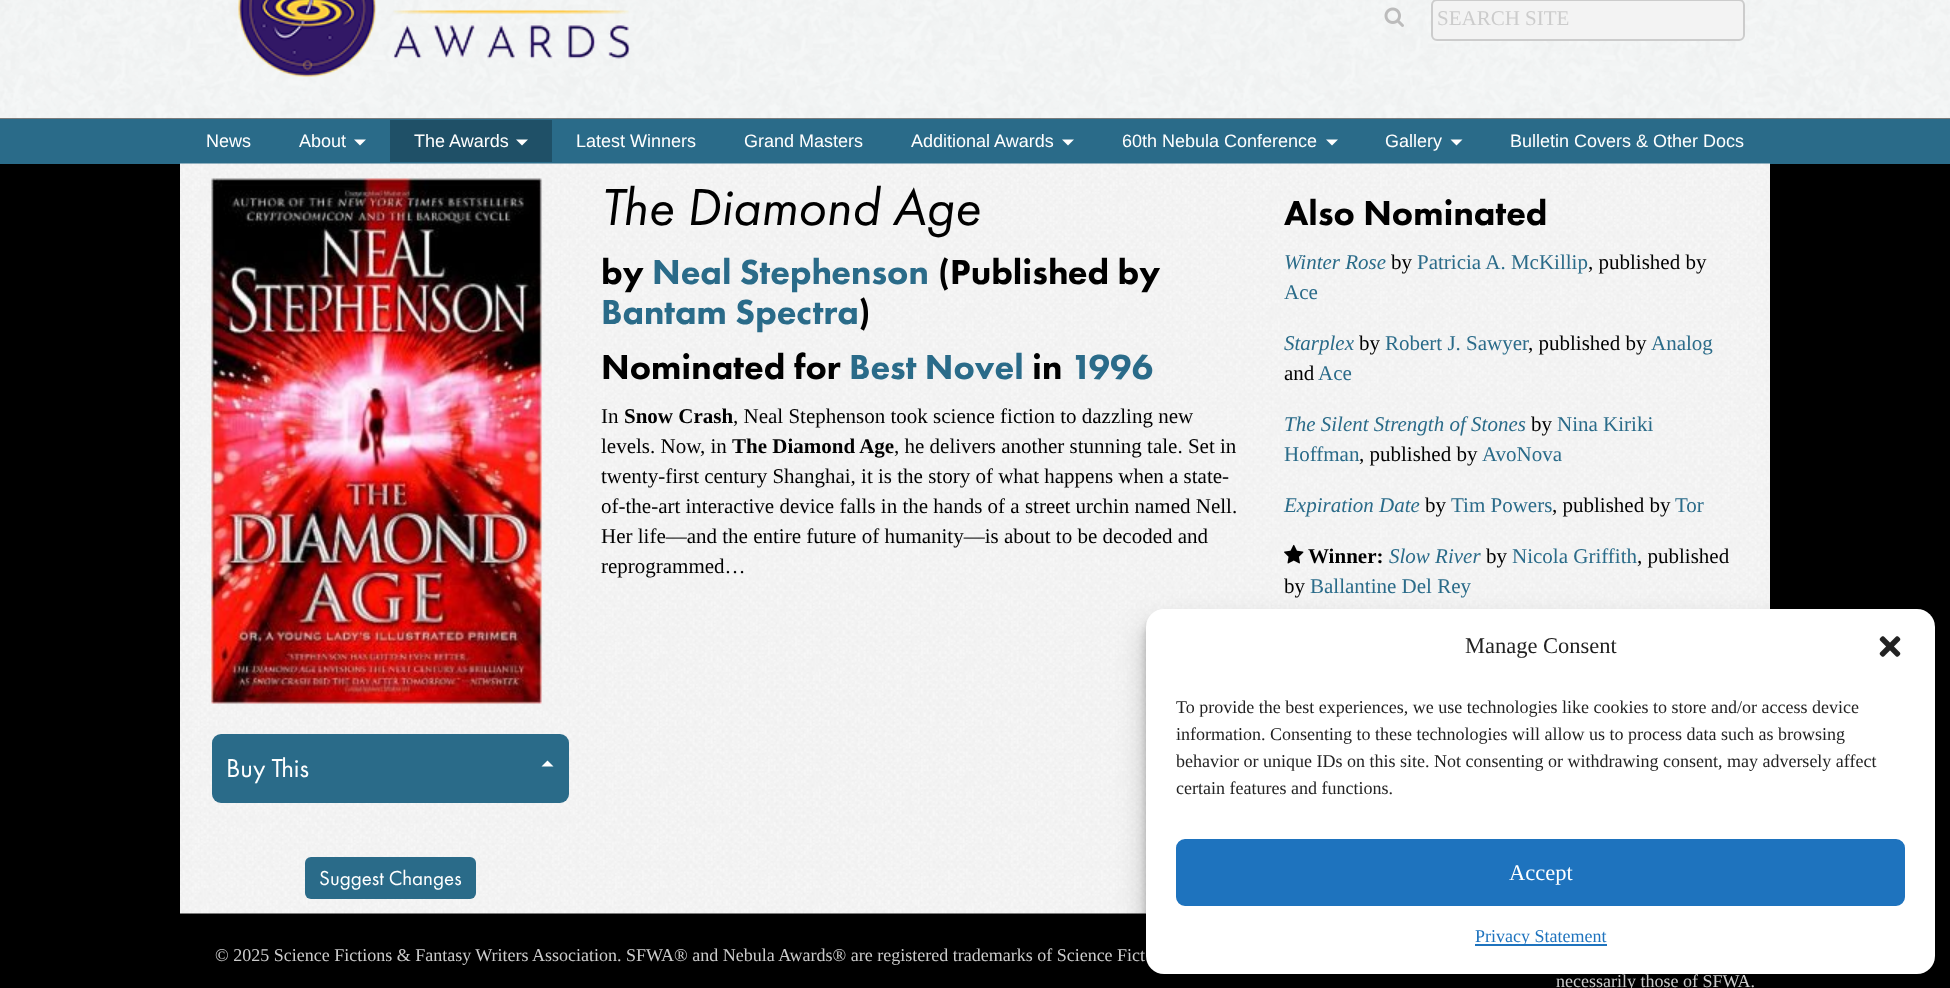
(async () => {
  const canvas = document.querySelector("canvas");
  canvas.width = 1950;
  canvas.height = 988;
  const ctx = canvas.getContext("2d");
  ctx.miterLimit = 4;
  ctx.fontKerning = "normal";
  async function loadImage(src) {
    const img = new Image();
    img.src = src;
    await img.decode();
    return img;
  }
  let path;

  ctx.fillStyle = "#000000";
  ctx.fillRect(0, 0, 1950, 988);
  ctx.drawImage(await loadImage("img/1.png"), 0, 0, 1950, 119);
  ctx.drawImage(await loadImage("img/2.png"), 238, 0, 392, 77);
  ctx.drawImage(await loadImage("img/3.png"), 1384, 7, 20, 20);
  ctx.fillStyle = "#f3f3f3";
  ctx.beginPath();
  ctx.roundRect(1432, 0, 312, 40, 5);
  ctx.fill();
  ctx.strokeStyle = "#cccccc";
  ctx.lineWidth = 2;
  ctx.stroke();
  ctx.fillStyle = "#2a6b89";
  ctx.fillRect(0, 119, 1950, 45);
  ctx.fillStyle = "#ffffff";
  path = new Path2D("M354 139.5H366L360 145.5Z");
  ctx.fill(path);
  ctx.fillStyle = "#1f5067";
  ctx.fillRect(390, 120, 162, 42);
  ctx.fillStyle = "#ffffff";
  path = new Path2D("M516 139.5H528L522 145.5Z");
  ctx.fill(path);
  path = new Path2D("M1062 139.5H1074L1068 145.5Z");
  ctx.fill(path);
  path = new Path2D("M1326 139.5H1338L1332 145.5Z");
  ctx.fill(path);
  path = new Path2D("M1450.5 139.5H1462.5L1456.5 145.5Z");
  ctx.fill(path);
  ctx.drawImage(await loadImage("img/4.png"), 180, 163, 1590, 751);
  ctx.drawImage(await loadImage("img/5.png"), 1284, 544, 20, 20);
  ctx.drawImage(await loadImage("img/6.png"), 211, 178, 331, 526);
  ctx.fillStyle = "#2a6b89";
  ctx.beginPath();
  ctx.roundRect(212, 734, 357, 69, 9);
  ctx.fill();
  ctx.fillStyle = "#ffffff";
  path = new Path2D("M553.5 766.5H541.5L547.5 760.5Z");
  ctx.fill(path);
  ctx.fillStyle = "#2a6b89";
  ctx.beginPath();
  ctx.roundRect(305, 857, 171, 42, 6);
  ctx.fill();
  ctx.fillStyle = "rgba(0, 0, 0, 0.23)";
  ctx.filter = "blur(4.5px)";
  ctx.beginPath();
  ctx.roundRect(1146, 618, 789, 365, 18);
  ctx.fill();
  ctx.filter = "none";
  ctx.fillStyle = "rgba(0, 0, 0, 0.19)";
  ctx.filter = "blur(15px)";
  ctx.beginPath();
  ctx.roundRect(1146, 624, 789, 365, 18);
  ctx.fill();
  ctx.filter = "none";
  ctx.fillStyle = "#ffffff";
  ctx.beginPath();
  ctx.roundRect(1146, 609, 789, 365, 18);
  ctx.fill();
  ctx.drawImage(await loadImage("img/7.png"), 1879, 636, 22, 21);
  ctx.fillStyle = "#1e73be";
  ctx.beginPath();
  ctx.roundRect(1177, 840, 727, 65, 8);
  ctx.fill();
  ctx.strokeStyle = "#1e73be";
  ctx.stroke();
  ctx.fillRect(1475, 944, 132, 2);
  ctx.font = "21px Liberation Serif";
  ctx.fillStyle = "#cccccc";
  ctx.fillText("SEARCH SITE", 1437, 25);
  ctx.font = "18px Liberation Sans";
  ctx.fillStyle = "#ffffff";
  for (const [text, x, y] of [
    ["News", 206, 147],
    ["About", 299, 147],
    ["The Awards", 414, 147],
    ["Latest Winners", 576, 147],
    ["Grand Masters", 744, 147],
    ["Additional Awards", 911, 147],
    ["60th Nebula Conference", 1122, 147],
    ["Gallery", 1385, 147],
    ["Bulletin Covers & Other Docs", 1510, 147],
  ]) {
    ctx.fillText(text, x, y);
  }
  ctx.font = "italic 54px Futura PT";
  ctx.fillStyle = "#000000";
  ctx.fillText("The Diamond Age", 601, 225);
  ctx.font = "900 36px Futura PT";
  ctx.fillText("by", 601, 284);
  ctx.fillStyle = "#2a6b89";
  ctx.fillText("Neal Stephenson", 652, 284);
  ctx.fillStyle = "#000000";
  ctx.fillText("(Published by", 938, 284);
  ctx.fillStyle = "#2a6b89";
  ctx.fillText("Bantam Spectra", 601, 324);
  ctx.fillStyle = "#000000";
  ctx.fillText(")", 858, 324);
  ctx.fillText("Nominated for", 601, 379);
  ctx.fillStyle = "#2a6b89";
  ctx.fillText("Best Novel", 849, 379);
  ctx.fillStyle = "#000000";
  ctx.fillText("in", 1032, 379);
  ctx.fillStyle = "#2a6b89";
  ctx.fillText("1996", 1071, 379);
  ctx.font = "21px Liberation Serif";
  ctx.fillStyle = "#000000";
  ctx.fillText("In", 601, 423);
  ctx.font = "bold 21px Liberation Serif";
  ctx.fillText("Snow Crash", 624, 423);
  ctx.font = "21px Liberation Serif";
  ctx.fillText(", Neal Stephenson took science fiction to dazzling new", 733, 423);
  ctx.fillText("levels. Now, in", 601, 453);
  ctx.font = "bold 21px Liberation Serif";
  ctx.fillText("The Diamond Age", 732, 453);
  ctx.font = "21px Liberation Serif";
  for (const [text, x, y] of [
    [", he delivers another stunning tale. Set in", 894, 453],
    ["twenty-first century Shanghai, it is the story of what happens when a state-", 601, 483],
    ["of-the-art interactive device falls in the hands of a street urchin named Nell.", 601, 513],
    ["Her life—and the entire future of humanity—is about to be decoded and", 601, 543],
    ["reprogrammed…", 601, 573],
  ]) {
    ctx.fillText(text, x, y);
  }
  ctx.font = "900 36px Futura PT";
  ctx.fillText("Also Nominated", 1284, 225);
  ctx.font = "italic 21px Liberation Serif";
  ctx.fillStyle = "#2a6b89";
  ctx.fillText("Winter Rose", 1284, 269);
  ctx.font = "21px Liberation Serif";
  ctx.fillStyle = "#000000";
  ctx.fillText("by", 1391, 269);
  ctx.fillStyle = "#2a6b89";
  ctx.fillText("Patricia A. McKillip", 1417, 269);
  ctx.fillStyle = "#000000";
  ctx.fillText(", published by", 1588, 269);
  ctx.fillStyle = "#2a6b89";
  ctx.fillText("Ace", 1284, 299);
  ctx.font = "italic 21px Liberation Serif";
  ctx.fillText("Starplex", 1284, 350);
  ctx.font = "21px Liberation Serif";
  ctx.fillStyle = "#000000";
  ctx.fillText("by", 1359, 350);
  ctx.fillStyle = "#2a6b89";
  ctx.fillText("Robert J. Sawyer", 1385, 350);
  ctx.fillStyle = "#000000";
  ctx.fillText(", published by", 1528, 350);
  ctx.fillStyle = "#2a6b89";
  ctx.fillText("Analog", 1651, 350);
  ctx.fillStyle = "#000000";
  ctx.fillText("and", 1284, 380);
  ctx.fillStyle = "#2a6b89";
  ctx.fillText("Ace", 1318, 380);
  ctx.font = "italic 21px Liberation Serif";
  ctx.fillText("The Silent Strength of Stones", 1284, 431);
  ctx.font = "21px Liberation Serif";
  ctx.fillStyle = "#000000";
  ctx.fillText("by", 1531, 431);
  ctx.fillStyle = "#2a6b89";
  ctx.fillText("Nina Kiriki", 1557, 431);
  ctx.fillText("Hoffman", 1284, 461);
  ctx.fillStyle = "#000000";
  ctx.fillText(", published by", 1359, 461);
  ctx.fillStyle = "#2a6b89";
  ctx.fillText("AvoNova", 1482, 461);
  ctx.font = "italic 21px Liberation Serif";
  ctx.fillText("Expiration Date", 1284, 512);
  ctx.font = "21px Liberation Serif";
  ctx.fillStyle = "#000000";
  ctx.fillText("by", 1425, 512);
  ctx.fillStyle = "#2a6b89";
  ctx.fillText("Tim Powers", 1451, 512);
  ctx.fillStyle = "#000000";
  ctx.fillText(", published by", 1552, 512);
  ctx.fillStyle = "#2a6b89";
  ctx.fillText("Tor", 1675, 512);
  ctx.font = "bold 21px Liberation Serif";
  ctx.fillStyle = "#000000";
  ctx.fillText("Winner:", 1308, 563);
  ctx.font = "italic 21px Liberation Serif";
  ctx.fillStyle = "#2a6b89";
  ctx.fillText("Slow River", 1389, 563);
  ctx.font = "21px Liberation Serif";
  ctx.fillStyle = "#000000";
  ctx.fillText("by", 1486, 563);
  ctx.fillStyle = "#2a6b89";
  ctx.fillText("Nicola Griffith", 1512, 563);
  ctx.fillStyle = "#000000";
  ctx.fillText(", published", 1637, 563);
  ctx.fillText("by", 1284, 593);
  ctx.fillStyle = "#2a6b89";
  ctx.fillText("Ballantine Del Rey", 1310, 593);
  ctx.font = "27px Futura PT";
  ctx.fillStyle = "#ffffff";
  ctx.fillText("Buy This", 226, 777);
  ctx.font = "21px Futura PT";
  ctx.fillText("Suggest Changes", 319, 885);
  ctx.font = "22.5px Liberation Serif";
  ctx.fillStyle = "#222222";
  ctx.fillText("Manage Consent", 1465, 653);
  ctx.font = "18px Liberation Serif";
  for (const [text, x, y] of [
    ["To provide the best experiences, we use technologies like cookies to store and/or access device", 1176, 713],
    ["information. Consenting to these technologies will allow us to process data such as browsing", 1176, 740],
    ["behavior or unique IDs on this site. Not consenting or withdrawing consent, may adversely affect", 1176, 767],
    ["certain features and functions.", 1176, 794],
  ]) {
    ctx.fillText(text, x, y);
  }
  ctx.font = "22.5px Liberation Serif";
  ctx.fillStyle = "#ffffff";
  ctx.fillText("Accept", 1509, 880);
  ctx.font = "18px Liberation Serif";
  ctx.fillStyle = "#1e73be";
  ctx.fillText("Privacy Statement", 1475, 942);
  ctx.fillStyle = "#cccccc";
  ctx.fillText("© 2025 Science Fictions & Fantasy Writers Association. SFWA® and Nebula Awards® are registered trademarks of Science Fict", 215, 961);
  ctx.fillText("necessarily those of SFWA.", 1556, 987);
})();
